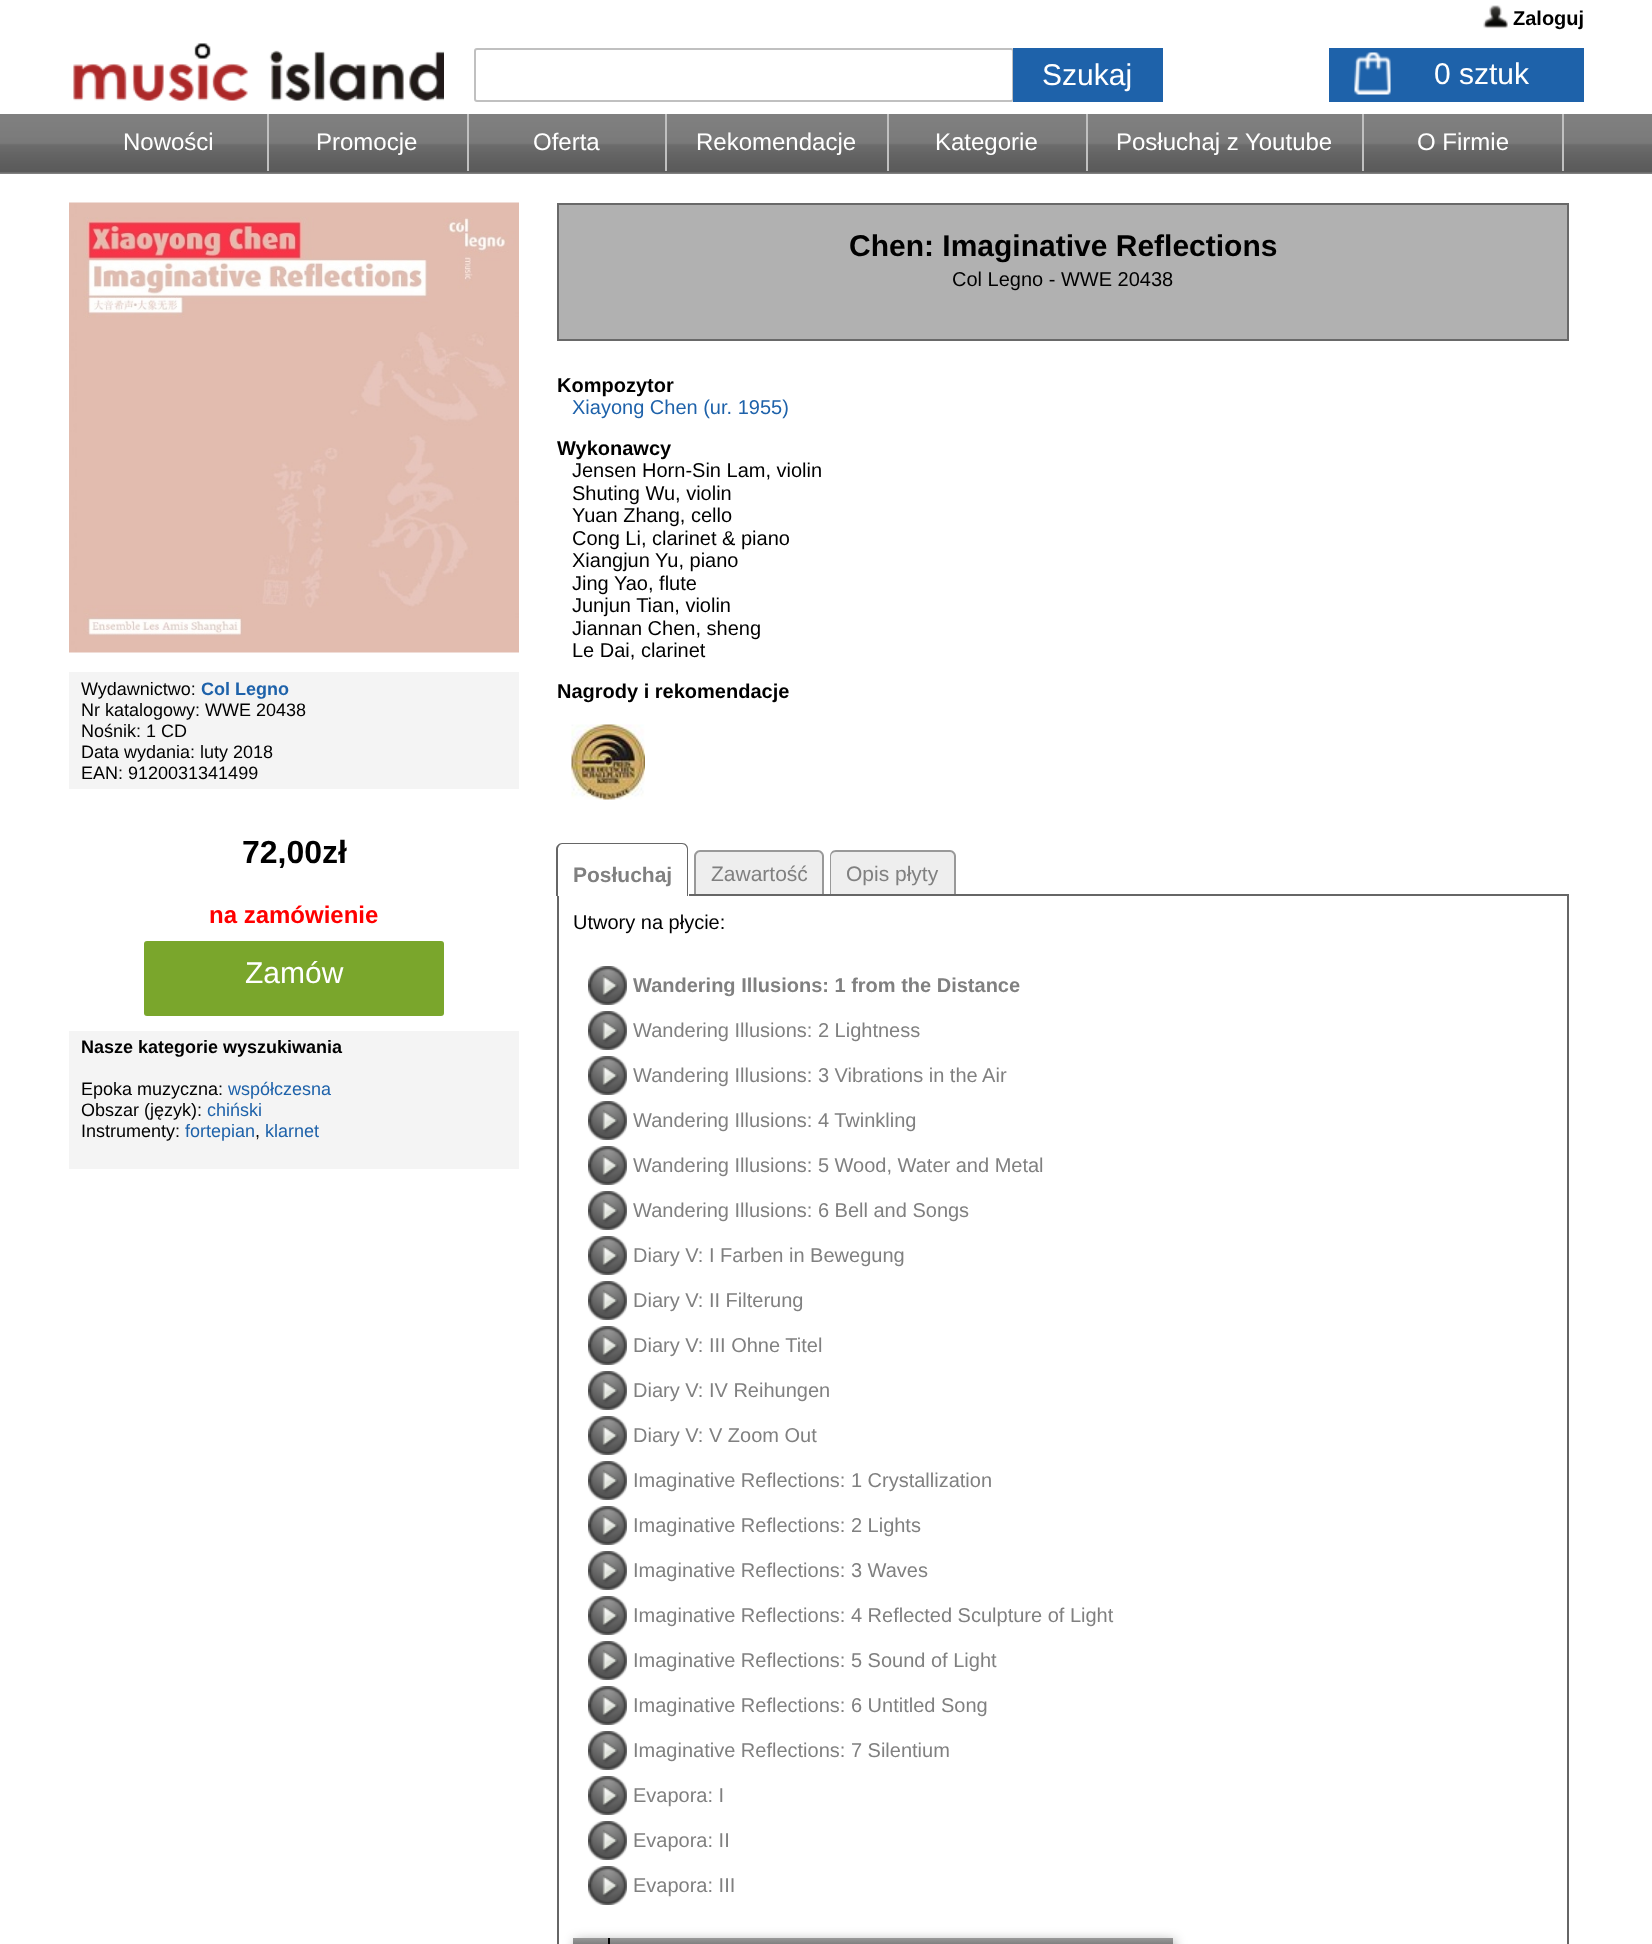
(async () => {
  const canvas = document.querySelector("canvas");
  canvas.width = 1652;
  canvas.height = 1944;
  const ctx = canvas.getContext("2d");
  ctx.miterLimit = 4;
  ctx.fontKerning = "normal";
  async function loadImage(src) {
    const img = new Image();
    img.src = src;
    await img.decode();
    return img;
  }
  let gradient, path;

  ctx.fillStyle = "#ffffff";
  ctx.fillRect(0, 0, 1652, 1944);
  ctx.drawImage(await loadImage("img/1.png"), 1483, 5, 25, 24);
  ctx.drawImage(await loadImage("img/2.png"), 73, 43, 371, 58);
  ctx.beginPath();
  ctx.roundRect(475, 49, 538, 52, 2);
  ctx.strokeStyle = "#c0c0c0";
  ctx.lineWidth = 2;
  ctx.stroke();
  ctx.fillStyle = "#1e62aa";
  ctx.fillRect(1013, 48, 150, 54);
  ctx.fillRect(1329, 48, 255, 54);
  ctx.drawImage(await loadImage("img/3.png"), 1354, 52, 37, 43);
  ctx.drawImage(await loadImage("img/4.png"), 0, 114, 1652, 60);
  for (const [x, y, w, h, color] of [
    [267, 114, 2, 57, "#c0c0c0"],
    [467, 114, 2, 57, "#c0c0c0"],
    [665, 114, 2, 57, "#c0c0c0"],
    [887, 114, 2, 57, "#c0c0c0"],
    [1086, 114, 2, 57, "#c0c0c0"],
    [1362, 114, 2, 57, "#c0c0c0"],
    [1562, 114, 2, 57, "#c0c0c0"],
  ]) {
    ctx.fillStyle = color;
    ctx.fillRect(x, y, w, h);
  }
  ctx.fillStyle = "#b1b1b1";
  ctx.beginPath();
  ctx.rect(558, 204, 1010, 136);
  ctx.fill();
  ctx.strokeStyle = "#696969";
  ctx.stroke();
  ctx.drawImage(await loadImage("img/5.png"), 69, 202, 450, 451);
  ctx.fillStyle = "#f4f4f4";
  ctx.fillRect(69, 672, 450, 117);
  ctx.fillStyle = "#7aa62c";
  ctx.beginPath();
  ctx.roundRect(144, 941, 300, 75, 3);
  ctx.fill();
  ctx.fillStyle = "#f4f4f4";
  ctx.fillRect(69, 1031, 450, 138);
  ctx.drawImage(await loadImage("img/6.png"), 571, 724, 74, 76);
  ctx.strokeStyle = "#666666";
  ctx.strokeRect(558, 895, 1010, 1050);
  ctx.fillStyle = "#ffffff";
  ctx.beginPath();
  ctx.roundRect(557, 843, 132, 53, [6, 6, 0, 0]);
  ctx.fill();
  ctx.fillStyle = "#666666";
  path = new Path2D("M562 843H682C686 843 688 846 688 849V896H556V849C556 846 559 843 562 843ZM562 844H682C685 844 687 847 687 849V896H558V849C558 847 560 844 562 844Z");
  ctx.fill(path, "evenodd");
  ctx.fillStyle = "#eeeeee";
  ctx.beginPath();
  ctx.roundRect(695, 851, 129, 43, [6, 6, 0, 0]);
  ctx.fill();
  ctx.fillStyle = "#999999";
  path = new Path2D("M700 850H818C821 850 824 853 824 856V894H694V856C694 853 697 850 700 850ZM700 852H818C820 852 822 854 822 856V894H696V856C696 854 698 852 700 852Z");
  ctx.fill(path, "evenodd");
  ctx.fillStyle = "#eeeeee";
  ctx.beginPath();
  ctx.roundRect(830, 851, 126, 43, [6, 6, 0, 0]);
  ctx.fill();
  ctx.fillStyle = "#999999";
  path = new Path2D("M836 850H950C953 850 956 853 956 856V894H830V856C830 853 832 850 836 850ZM836 852H950C952 852 954 854 954 856V894H831V856C831 854 833 852 836 852Z");
  ctx.fill(path, "evenodd");
  ctx.drawImage(await loadImage("img/7.png"), 588, 966, 39, 39);
  ctx.drawImage(await loadImage("img/7.png"), 588, 1011, 39, 39);
  ctx.drawImage(await loadImage("img/7.png"), 588, 1056, 39, 39);
  ctx.drawImage(await loadImage("img/7.png"), 588, 1101, 39, 39);
  ctx.drawImage(await loadImage("img/7.png"), 588, 1146, 39, 39);
  ctx.drawImage(await loadImage("img/7.png"), 588, 1191, 39, 39);
  ctx.drawImage(await loadImage("img/7.png"), 588, 1236, 39, 39);
  ctx.drawImage(await loadImage("img/7.png"), 588, 1281, 39, 39);
  ctx.drawImage(await loadImage("img/7.png"), 588, 1326, 39, 39);
  ctx.drawImage(await loadImage("img/7.png"), 588, 1371, 39, 39);
  ctx.drawImage(await loadImage("img/7.png"), 588, 1416, 39, 39);
  ctx.drawImage(await loadImage("img/7.png"), 588, 1461, 39, 39);
  ctx.drawImage(await loadImage("img/7.png"), 588, 1506, 39, 39);
  ctx.drawImage(await loadImage("img/7.png"), 588, 1551, 39, 39);
  ctx.drawImage(await loadImage("img/7.png"), 588, 1596, 39, 39);
  ctx.drawImage(await loadImage("img/7.png"), 588, 1641, 39, 39);
  ctx.drawImage(await loadImage("img/7.png"), 588, 1686, 39, 39);
  ctx.drawImage(await loadImage("img/7.png"), 588, 1731, 39, 39);
  ctx.drawImage(await loadImage("img/7.png"), 588, 1776, 39, 39);
  ctx.drawImage(await loadImage("img/7.png"), 588, 1821, 39, 39);
  ctx.drawImage(await loadImage("img/7.png"), 588, 1866, 39, 39);
  ctx.fillStyle = "rgba(0, 0, 0, 0.3)";
  ctx.filter = "blur(6px)";
  ctx.beginPath();
  ctx.rect(575, 1940, 600, 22);
  ctx.fill();
  ctx.filter = "none";
  gradient = ctx.createLinearGradient(573, 1938, 573, 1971);
  gradient.addColorStop(0, "#999999");
  gradient.addColorStop(0.5, "#555555");
  gradient.addColorStop(0.51, "#444444");
  gradient.addColorStop(1, "#999999");
  ctx.fillStyle = gradient;
  ctx.fillRect(573, 1938, 600, 6);
  ctx.fillStyle = "#000000";
  ctx.fillRect(608, 1938, 2, 6);
  ctx.font = "bold 20px Liberation Sans";
  ctx.fillText("Zaloguj", 1513, 25);
  ctx.font = "30px Liberation Sans";
  ctx.fillStyle = "#ffffff";
  ctx.fillText("Szukaj", 1042, 85);
  ctx.fillText("0 sztuk", 1434, 84);
  ctx.font = "24px Liberation Sans";
  for (const [text, x, y] of [
    ["Nowości", 123, 150],
    ["Promocje", 316, 150],
    ["Oferta", 533, 150],
    ["Rekomendacje", 696, 150],
    ["Kategorie", 935, 150],
    ["Posłuchaj z Youtube", 1116, 150],
    ["O Firmie", 1417, 150],
  ]) {
    ctx.fillText(text, x, y);
  }
  ctx.font = "bold 30px Liberation Sans";
  ctx.fillStyle = "#000000";
  ctx.fillText("Chen: Imaginative Reflections", 849, 256);
  ctx.font = "20px Liberation Sans";
  ctx.fillText("Col Legno - WWE 20438", 952, 286);
  ctx.font = "18px Liberation Sans";
  ctx.fillText("Wydawnictwo:", 81, 695);
  ctx.font = "bold 18px Liberation Sans";
  ctx.fillStyle = "#1e62aa";
  ctx.fillText("Col Legno", 201, 695);
  ctx.font = "18px Liberation Sans";
  ctx.fillStyle = "#000000";
  for (const [text, x, y] of [
    ["Nr katalogowy: WWE 20438", 81, 716],
    ["Nośnik: 1 CD", 81, 737],
    ["Data wydania: luty 2018", 81, 758],
    ["EAN: 9120031341499", 81, 779],
  ]) {
    ctx.fillText(text, x, y);
  }
  ctx.font = "bold 32px Liberation Sans";
  ctx.fillText("72,00zł", 242, 863);
  ctx.font = "bold 24px Liberation Sans";
  ctx.fillStyle = "#ff0000";
  ctx.fillText("na zamówienie", 209, 923);
  ctx.font = "30px Liberation Sans";
  ctx.fillStyle = "#ffffff";
  ctx.fillText("Zamów", 245, 983);
  ctx.font = "bold 18px Liberation Sans";
  ctx.fillStyle = "#000000";
  ctx.fillText("Nasze kategorie wyszukiwania", 81, 1053);
  ctx.font = "18px Liberation Sans";
  ctx.fillText("Epoka muzyczna:", 81, 1095);
  ctx.fillStyle = "#1e62aa";
  ctx.fillText("współczesna", 228, 1095);
  ctx.fillStyle = "#000000";
  ctx.fillText("Obszar (język):", 81, 1116);
  ctx.fillStyle = "#1e62aa";
  ctx.fillText("chiński", 207, 1116);
  ctx.fillStyle = "#000000";
  ctx.fillText("Instrumenty:", 81, 1137);
  ctx.fillStyle = "#1e62aa";
  ctx.fillText("fortepian", 185, 1137);
  ctx.fillStyle = "#000000";
  ctx.fillText(",", 255, 1137);
  ctx.fillStyle = "#1e62aa";
  ctx.fillText("klarnet", 265, 1137);
  ctx.font = "bold 20px Liberation Sans";
  ctx.fillStyle = "#000000";
  ctx.fillText("Kompozytor", 557, 392);
  ctx.font = "20px Liberation Sans";
  ctx.fillStyle = "#1e62aa";
  ctx.fillText("Xiayong Chen (ur. 1955)", 572, 414);
  ctx.font = "bold 20px Liberation Sans";
  ctx.fillStyle = "#000000";
  ctx.fillText("Wykonawcy", 557, 455);
  ctx.font = "20px Liberation Sans";
  for (const [text, x, y] of [
    ["Jensen Horn-Sin Lam, violin", 572, 477],
    ["Shuting Wu, violin", 572, 500],
    ["Yuan Zhang, cello", 572, 522],
    ["Cong Li, clarinet & piano", 572, 545],
    ["Xiangjun Yu, piano", 572, 567],
    ["Jing Yao, flute", 572, 590],
    ["Junjun Tian, violin", 572, 612],
    ["Jiannan Chen, sheng", 572, 635],
    ["Le Dai, clarinet", 572, 657],
  ]) {
    ctx.fillText(text, x, y);
  }
  ctx.font = "bold 20px Liberation Sans";
  ctx.fillText("Nagrody i rekomendacje", 557, 698);
  ctx.font = "bold 21px Liberation Sans";
  ctx.fillStyle = "#808080";
  ctx.fillText("Posłuchaj", 573, 882);
  ctx.font = "21px Liberation Sans";
  ctx.fillText("Zawartość", 711, 881);
  ctx.fillText("Opis płyty", 846, 881);
  ctx.font = "20px Liberation Sans";
  ctx.fillStyle = "#000000";
  ctx.fillText("Utwory na płycie:", 573, 929);
  ctx.font = "bold 20px Liberation Sans";
  ctx.fillStyle = "#808080";
  ctx.fillText("Wandering Illusions: 1 from the Distance", 633, 992);
  ctx.font = "20px Liberation Sans";
  for (const [text, x, y] of [
    ["Wandering Illusions: 2 Lightness", 633, 1037],
    ["Wandering Illusions: 3 Vibrations in the Air", 633, 1082],
    ["Wandering Illusions: 4 Twinkling", 633, 1127],
    ["Wandering Illusions: 5 Wood, Water and Metal", 633, 1172],
    ["Wandering Illusions: 6 Bell and Songs", 633, 1217],
    ["Diary V: I Farben in Bewegung", 633, 1262],
    ["Diary V: II Filterung", 633, 1307],
    ["Diary V: III Ohne Titel", 633, 1352],
    ["Diary V: IV Reihungen", 633, 1397],
    ["Diary V: V Zoom Out", 633, 1442],
    ["Imaginative Reflections: 1 Crystallization", 633, 1487],
    ["Imaginative Reflections: 2 Lights", 633, 1532],
    ["Imaginative Reflections: 3 Waves", 633, 1577],
    ["Imaginative Reflections: 4 Reflected Sculpture of Light", 633, 1622],
    ["Imaginative Reflections: 5 Sound of Light", 633, 1667],
    ["Imaginative Reflections: 6 Untitled Song", 633, 1712],
    ["Imaginative Reflections: 7 Silentium", 633, 1757],
    ["Evapora: I", 633, 1802],
    ["Evapora: II", 633, 1847],
    ["Evapora: III", 633, 1892],
  ]) {
    ctx.fillText(text, x, y);
  }
})();
